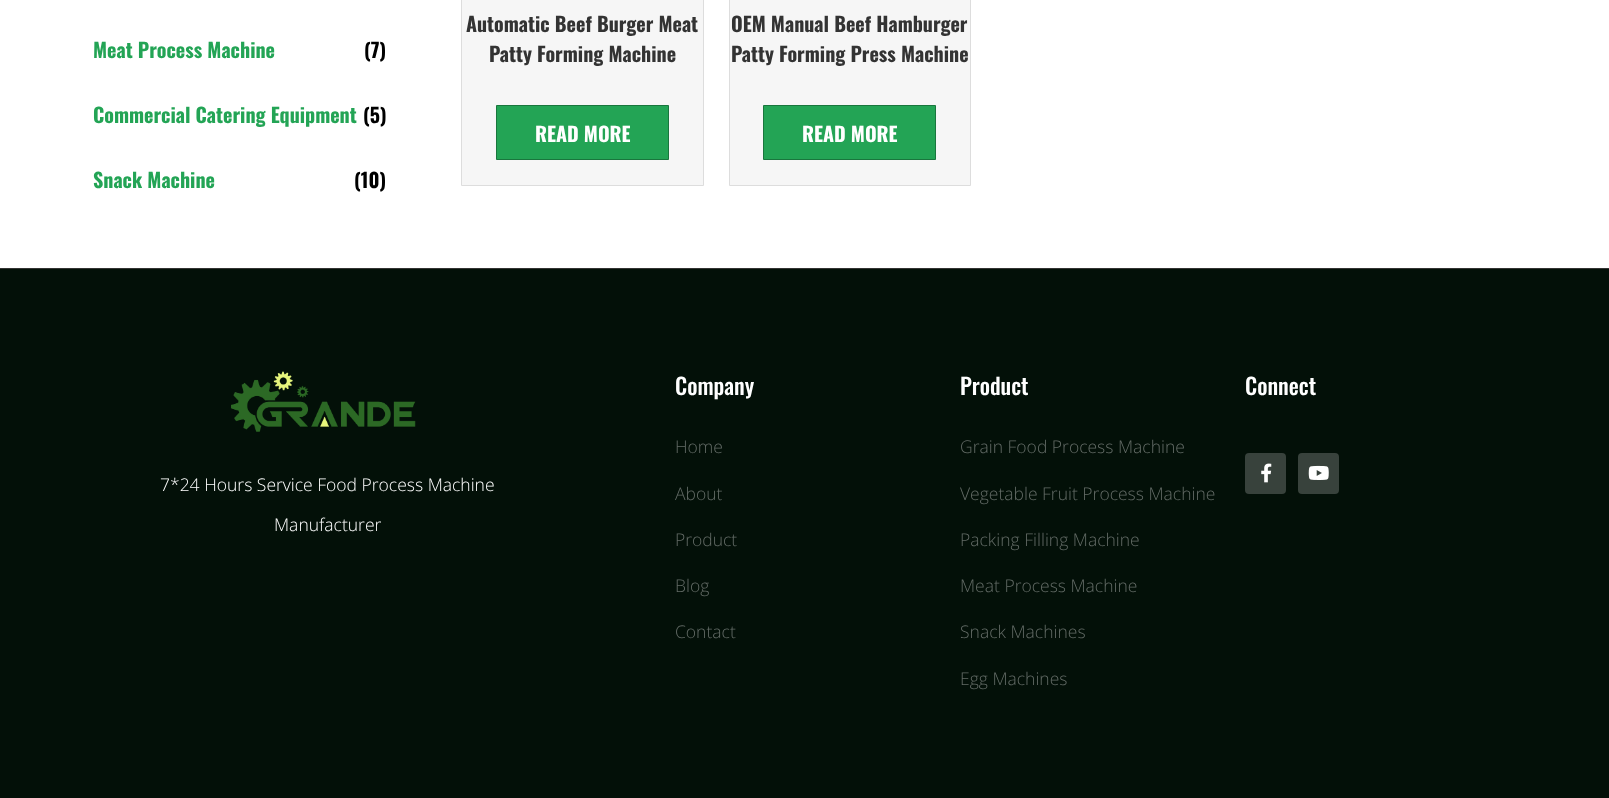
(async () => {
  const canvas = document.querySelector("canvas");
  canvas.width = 1609;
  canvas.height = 798;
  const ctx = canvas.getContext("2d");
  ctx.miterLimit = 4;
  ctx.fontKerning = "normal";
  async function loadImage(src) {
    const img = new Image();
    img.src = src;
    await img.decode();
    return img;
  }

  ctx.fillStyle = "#ffffff";
  ctx.fillRect(0, 0, 1609, 798);
  ctx.fillStyle = "#f6f6f6";
  ctx.beginPath();
  ctx.rect(461.5, -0.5, 242, 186);
  ctx.fill();
  ctx.strokeStyle = "#dddddd";
  ctx.stroke();
  ctx.fillStyle = "#23a455";
  ctx.beginPath();
  ctx.rect(496.5, 105.5, 172, 54);
  ctx.fill();
  ctx.strokeStyle = "#19763d";
  ctx.stroke();
  ctx.fillStyle = "#f6f6f6";
  ctx.beginPath();
  ctx.rect(729.5, -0.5, 241, 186);
  ctx.fill();
  ctx.strokeStyle = "#dddddd";
  ctx.stroke();
  ctx.fillStyle = "#23a455";
  ctx.beginPath();
  ctx.rect(763.5, 105.5, 172, 54);
  ctx.fill();
  ctx.strokeStyle = "#19763d";
  ctx.stroke();
  ctx.fillStyle = "#031008";
  ctx.fillRect(0, 269, 1609, 529);
  ctx.fillStyle = "#333333";
  ctx.fillRect(0, 268, 1609, 1);
  ctx.fillStyle = "#38423c";
  ctx.beginPath();
  ctx.roundRect(1245, 453, 41, 41, 4);
  ctx.fill();
  ctx.drawImage(await loadImage("img/1.png"), 1261, 463, 11, 20);
  ctx.beginPath();
  ctx.roundRect(1298, 453, 41, 41, 4);
  ctx.fill();
  ctx.drawImage(await loadImage("img/2.png"), 1308, 465, 21, 15);
  ctx.drawImage(await loadImage("img/3.png"), 231, 371, 185, 61);
  ctx.font = "bold 20px Oswald";
  ctx.fillStyle = "#23a455";
  ctx.fillText("Meat Process Machine", 93, 58);
  ctx.fillStyle = "#000000";
  ctx.fillText("(7)", 364, 58);
  ctx.fillStyle = "#23a455";
  ctx.fillText("Commercial Catering Equipment", 93, 123);
  ctx.fillStyle = "#000000";
  ctx.fillText("(5)", 363, 123);
  ctx.fillStyle = "#23a455";
  ctx.fillText("Snack Machine", 93, 188);
  ctx.fillStyle = "#000000";
  ctx.fillText("(10)", 354, 188);
  ctx.fillStyle = "#333333";
  ctx.fillText("Automatic Beef Burger Meat", 466, 32);
  ctx.fillText("Patty Forming Machine", 489, 62);
  ctx.fillStyle = "#ffffff";
  ctx.fillText("READ MORE", 535, 142);
  ctx.fillStyle = "#333333";
  ctx.fillText("OEM Manual Beef Hamburger", 731, 32);
  ctx.fillText("Patty Forming Press Machine", 731, 62);
  ctx.fillStyle = "#ffffff";
  ctx.fillText("READ MORE", 802, 142);
  ctx.font = "500 22.5px Oswald";
  ctx.fillText("Company", 675, 395);
  ctx.font = "300 17.5px Open Sans";
  ctx.fillStyle = "#636b66";
  for (const [text, x, y] of [
    ["Home", 675, 453],
    ["About", 675, 500],
    ["Product", 675, 546],
    ["Blog", 675, 592],
    ["Contact", 675, 638],
  ]) {
    ctx.fillText(text, x, y);
  }
  ctx.font = "500 22.5px Oswald";
  ctx.fillStyle = "#ffffff";
  ctx.fillText("Product", 960, 395);
  ctx.font = "300 17.5px Open Sans";
  ctx.fillStyle = "#636b66";
  for (const [text, x, y] of [
    ["Grain Food Process Machine", 960, 453],
    ["Vegetable Fruit Process Machine", 960, 500],
    ["Packing Filling Machine", 960, 546],
    ["Meat Process Machine", 960, 592],
    ["Snack Machines", 960, 638],
    ["Egg Machines", 960, 685],
  ]) {
    ctx.fillText(text, x, y);
  }
  ctx.font = "500 22.5px Oswald";
  ctx.fillStyle = "#ffffff";
  ctx.fillText("Connect", 1245, 395);
  ctx.font = "300 17.5px Open Sans";
  ctx.fillText("7*24 Hours Service Food Process Machine", 160, 491);
  ctx.fillText("Manufacturer", 274, 531);
})();
